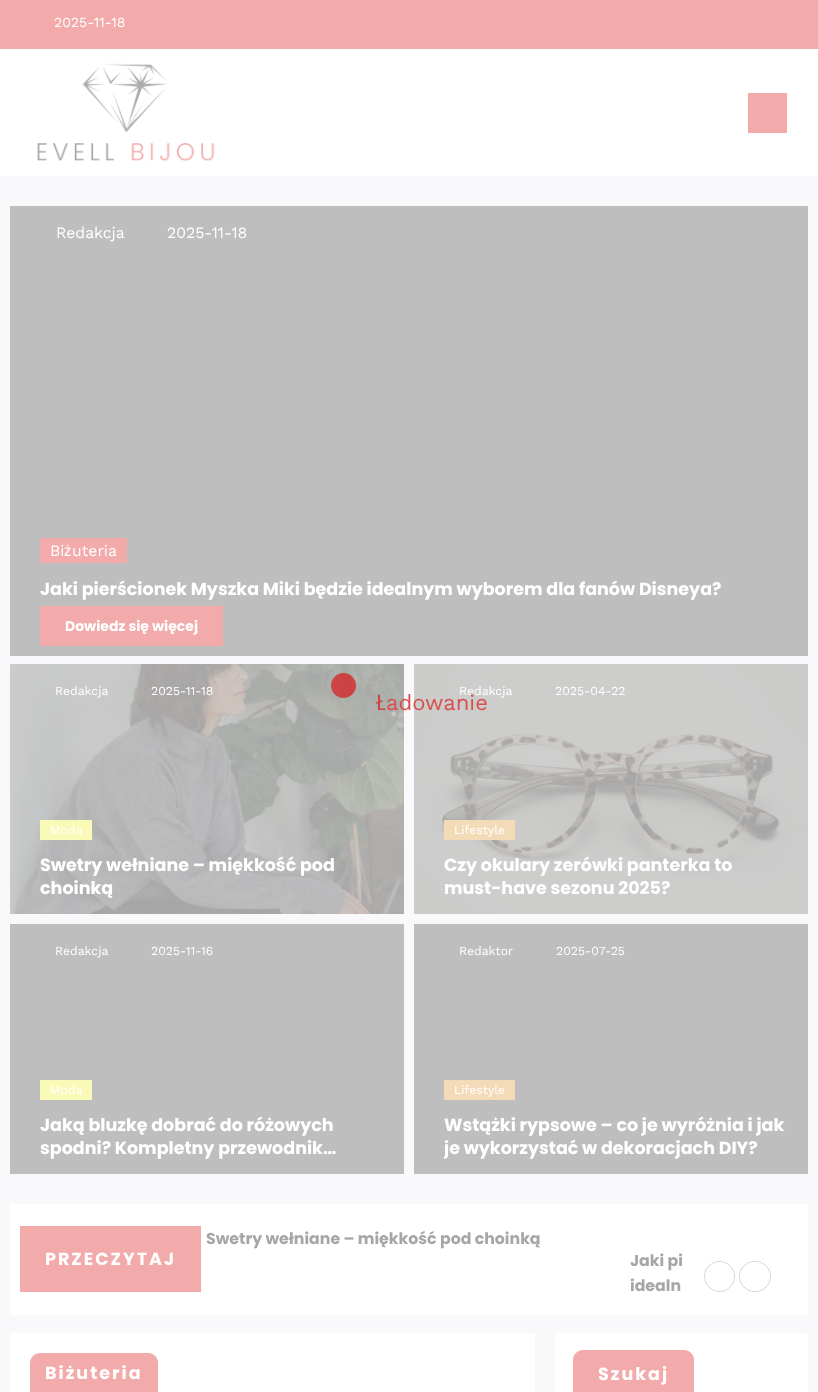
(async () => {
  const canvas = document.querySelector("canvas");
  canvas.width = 818;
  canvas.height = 1392;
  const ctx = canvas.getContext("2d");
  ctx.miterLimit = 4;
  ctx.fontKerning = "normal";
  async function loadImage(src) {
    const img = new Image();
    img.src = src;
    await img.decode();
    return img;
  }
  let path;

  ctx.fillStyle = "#f9f9fc";
  ctx.fillRect(0, 0, 818, 1392);
  ctx.fillStyle = "#f3aaaa";
  ctx.fillRect(0, 0, 818, 49);
  ctx.fillStyle = "#ffffff";
  ctx.fillRect(0, 49, 818, 127);
  ctx.drawImage(await loadImage("img/1.png"), 36, 63, 179, 99);
  for (const [x, y, w, h, color] of [
    [748, 93, 39, 40, "#f3aaaa"],
    [10, 206, 798, 450, "#bebebe"],
    [40, 538, 87, 25, "#f3aaaa"],
    [40, 606, 183, 40, "#f3aaaa"],
  ]) {
    ctx.fillStyle = color;
    ctx.fillRect(x, y, w, h);
  }
  ctx.drawImage(await loadImage("img/2.png"), 10, 664, 394, 250);
  for (const [x, y, w, h, color] of [
    [40, 820, 52, 20, "#f9f9b8"],
    [10, 924, 394, 250, "#bebebe"],
    [40, 1080, 52, 20, "#f9f9b8"],
  ]) {
    ctx.fillStyle = color;
    ctx.fillRect(x, y, w, h);
  }
  ctx.drawImage(await loadImage("img/3.png"), 414, 664, 394, 250);
  for (const [x, y, w, h, color] of [
    [444, 820, 71, 20, "#f3dbb8"],
    [414, 924, 394, 250, "#bebebe"],
    [444, 1080, 71, 20, "#f3dbb8"],
  ]) {
    ctx.fillStyle = color;
    ctx.fillRect(x, y, w, h);
  }
  ctx.fillStyle = "rgba(221, 13, 13, 0.65)";
  ctx.beginPath();
  ctx.arc(343.5, 685.5, 12.5, 0, Math.PI * 2);
  ctx.fill();
  ctx.fillStyle = "#ffffff";
  ctx.fillRect(10, 1204, 798, 111);
  ctx.fillStyle = "#f3aaaa";
  ctx.fillRect(20, 1226, 181, 66);
  ctx.beginPath();
  ctx.arc(719.5, 1276.5, 15, 0, Math.PI * 2);
  ctx.strokeStyle = "#cccccd";
  ctx.stroke();
  ctx.fillStyle = "#ffffff";
  ctx.beginPath();
  ctx.arc(719.5, 1276.5, 14.5, 0, Math.PI * 2);
  ctx.fill();
  ctx.beginPath();
  ctx.roundRect(739.5, 1261.5, 31, 30, 15);
  ctx.stroke();
  ctx.beginPath();
  ctx.roundRect(740, 1262, 30, 29, 14.5);
  ctx.fill();
  ctx.fillRect(10, 1333, 525, 59);
  ctx.fillStyle = "#f3aaaa";
  path = new Path2D("M40 1353H148C153.5 1353 158 1357.5 158 1363V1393H30V1363C30 1357.5 34.5 1353 40 1353Z");
  ctx.fill(path);
  ctx.fillStyle = "#ffffff";
  ctx.beginPath();
  ctx.roundRect(555, 1333, 253, 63, 4);
  ctx.fill();
  ctx.fillStyle = "#f3aaaa";
  path = new Path2D("M583 1350H684C689.5 1350 694 1354.5 694 1360V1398H573V1360C573 1354.5 577.5 1350 583 1350Z");
  ctx.fill(path);
  ctx.font = "14px Work Sans";
  ctx.fillStyle = "#ffffff";
  ctx.fillText("2025-11-18", 54, 27);
  ctx.font = "15.75px Work Sans";
  for (const [text, x, y] of [
    ["Redakcja", 56, 238],
    ["2025-11-18", 167, 238],
    ["Bi", 50, 556],
  ]) {
    ctx.fillText(text, x, y);
  }
  ctx.font = "15.75px Poppins";
  ctx.fillText("ż", 64, 556);
  ctx.font = "15.75px Work Sans";
  ctx.fillText("uteria", 72, 556);
  ctx.font = "bold 17.5px Poppins";
  ctx.fillText("Jaki pierścionek Myszka Miki będzie idealnym wyborem dla fanów Disneya?", 40, 595);
  ctx.font = "bold 14px Poppins";
  ctx.fillText("Dowiedz się więcej", 65, 631);
  ctx.font = "12.25px Work Sans";
  for (const [text, x, y] of [
    ["Redakcja", 55, 695],
    ["2025-11-18", 151, 695],
    ["Moda", 50, 834],
  ]) {
    ctx.fillText(text, x, y);
  }
  ctx.font = "bold 17.5px Poppins";
  ctx.fillText("Swetry wełniane – miękkość pod", 40, 871);
  ctx.fillText("choinką", 40, 894);
  ctx.font = "12.25px Work Sans";
  for (const [text, x, y] of [
    ["Redakcja", 55, 955],
    ["2025-11-16", 151, 955],
    ["Moda", 50, 1094],
  ]) {
    ctx.fillText(text, x, y);
  }
  ctx.font = "bold 17.5px Poppins";
  ctx.fillText("Jaką bluzkę dobrać do różowych", 40, 1131);
  ctx.fillText("spodni? Kompletny przewodnik…", 40, 1154);
  ctx.font = "12.25px Work Sans";
  for (const [text, x, y] of [
    ["Redakcja", 459, 695],
    ["2025-04-22", 555, 695],
    ["Lifestyle", 454, 834],
  ]) {
    ctx.fillText(text, x, y);
  }
  ctx.font = "bold 17.5px Poppins";
  ctx.fillText("Czy okulary zerówki panterka to", 444, 871);
  ctx.fillText("must-have sezonu 2025?", 444, 894);
  ctx.font = "12.25px Work Sans";
  for (const [text, x, y] of [
    ["Redaktor", 459, 955],
    ["2025-07-25", 556, 955],
    ["Lifestyle", 454, 1094],
  ]) {
    ctx.fillText(text, x, y);
  }
  ctx.font = "bold 17.5px Poppins";
  ctx.fillText("Wstążki rypsowe – co je wyróżnia i jak", 444, 1131);
  ctx.save();
  ctx.beginPath();
  ctx.rect(444, 1114, 344, 45);
  ctx.clip();
  ctx.fillText("je wykorzystać w dekoracjach DIY?", 444, 1154);
  ctx.restore();
  ctx.font = "22px Poppins";
  ctx.fillStyle = "#cc4544";
  ctx.fillText("Ł", 376, 710);
  ctx.font = "22px Work Sans";
  ctx.fillStyle = "#d7504f";
  ctx.fillText("adowanie", 386, 710);
  ctx.letterSpacing = "2px";
  ctx.font = "bold 17.5px Poppins";
  ctx.fillStyle = "#ffffff";
  ctx.fillText("PRZECZYTAJ", 45, 1265);
  ctx.letterSpacing = "0px";
  ctx.font = "bold 15.75px Poppins";
  ctx.fillStyle = "#a6a6a6";
  for (const [text, x, y] of [
    ["Swetry wełniane – miękkość pod choinką", 206, 1244],
    ["Jaki pi", 630, 1266],
    ["idealn", 630, 1291],
  ]) {
    ctx.fillText(text, x, y);
  }
  ctx.letterSpacing = "2px";
  ctx.font = "bold 17.5px Poppins";
  ctx.fillStyle = "#ffffff";
  ctx.fillText("Biżuteria", 45, 1379);
  ctx.fillText("Szukaj", 598, 1380);
})();
